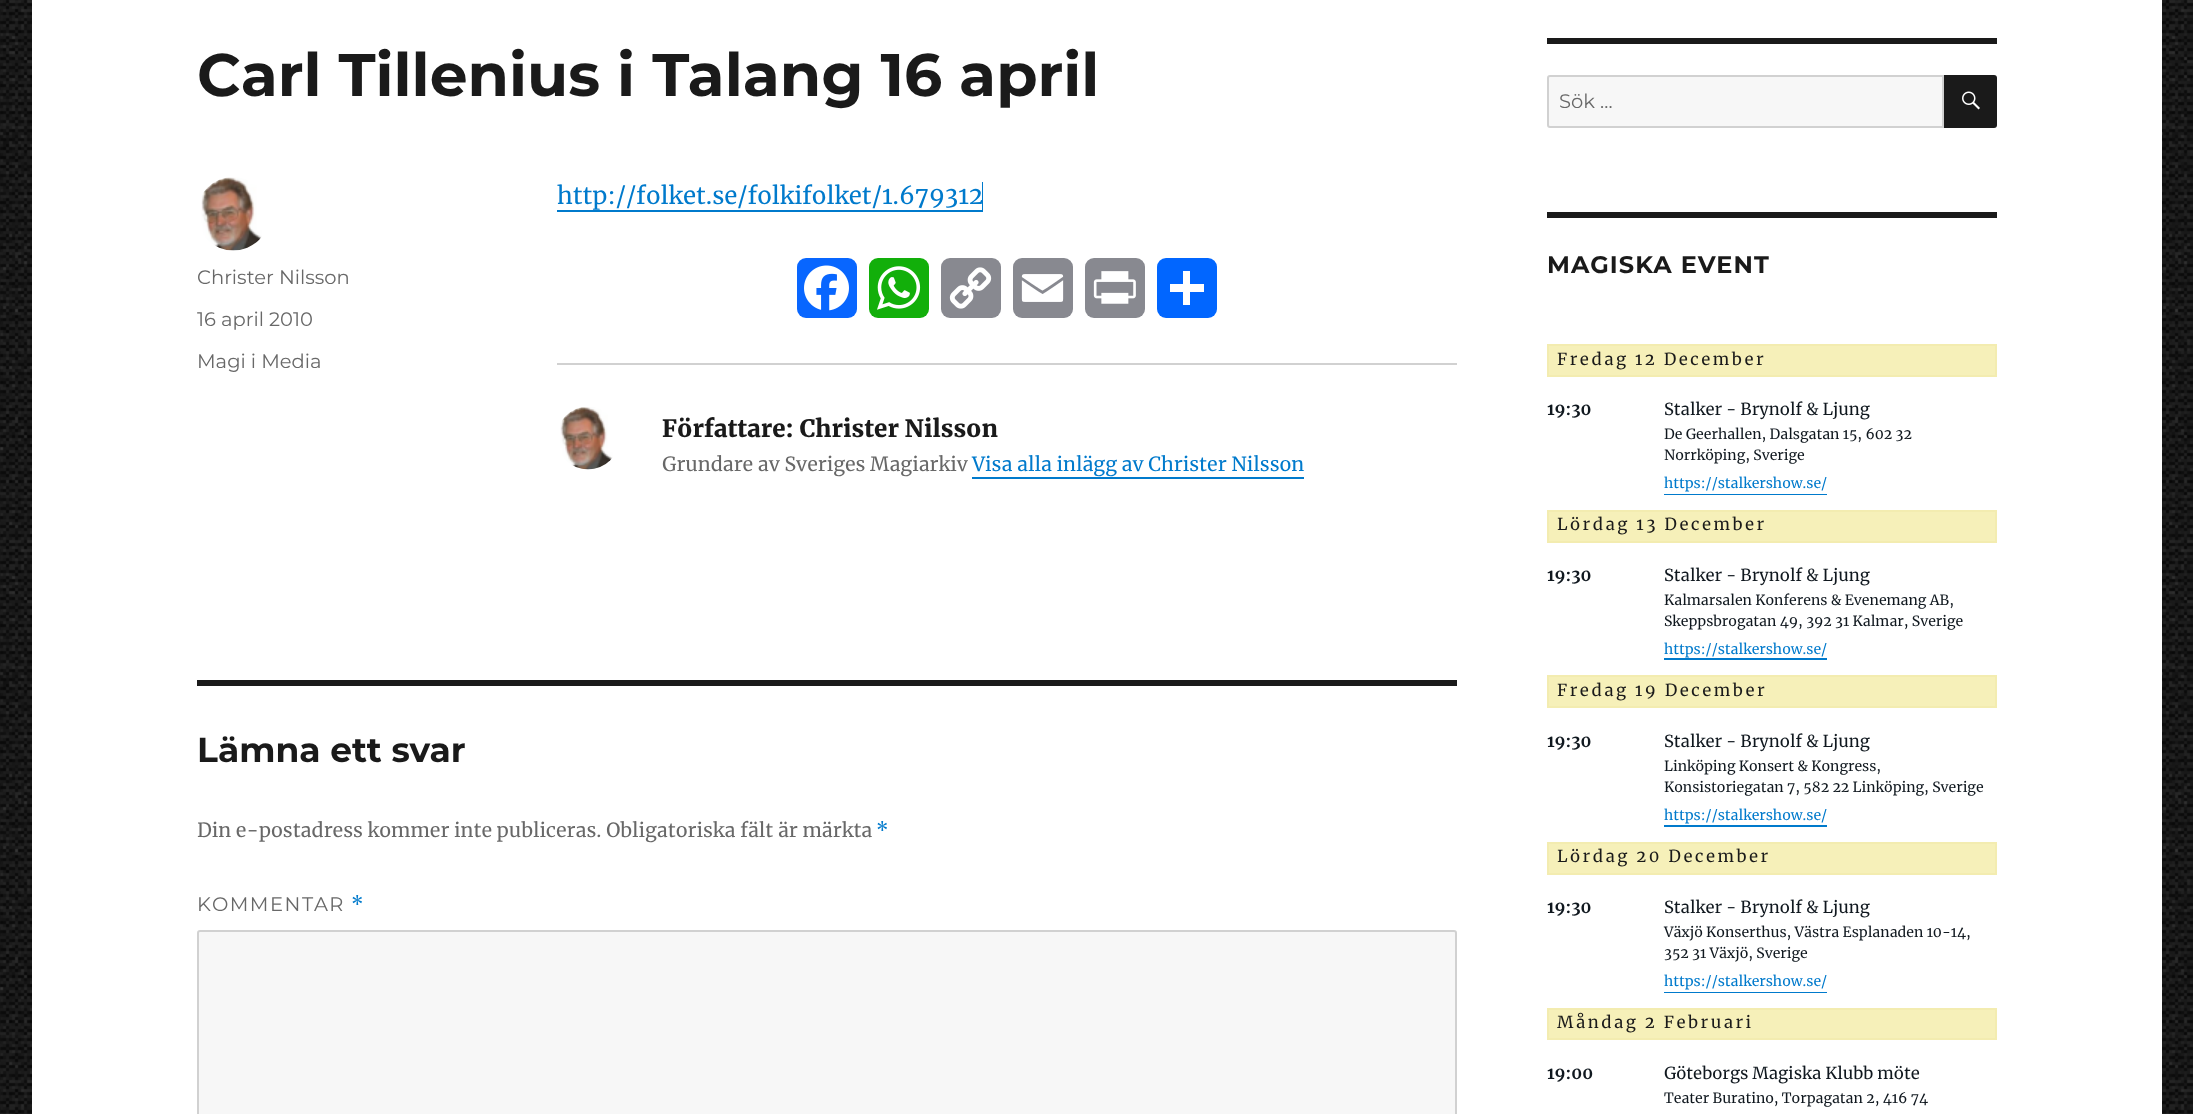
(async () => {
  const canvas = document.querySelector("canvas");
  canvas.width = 2193;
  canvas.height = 1114;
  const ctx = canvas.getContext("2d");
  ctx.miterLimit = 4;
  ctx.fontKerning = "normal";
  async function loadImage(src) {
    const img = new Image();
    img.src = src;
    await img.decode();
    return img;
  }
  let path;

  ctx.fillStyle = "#ffffff";
  ctx.fillRect(0, 0, 2193, 1114);
  ctx.drawImage(await loadImage("img/1.png"), 0, 0, 2193, 1114);
  ctx.fillRect(32, 0, 2130, 1114);
  ctx.drawImage(await loadImage("img/2.png"), 201, 177, 61, 74);
  ctx.fillStyle = "#007acc";
  path = new Path2D("M557 210V212H983V182H982V210Z");
  ctx.fill(path);
  ctx.fillStyle = "#0866ff";
  ctx.beginPath();
  ctx.roundRect(797, 258, 60, 60, 9);
  ctx.fill();
  ctx.drawImage(await loadImage("img/3.png"), 804, 265, 45, 46);
  ctx.fillStyle = "#12af0a";
  ctx.beginPath();
  ctx.roundRect(869, 258, 60, 60, 9);
  ctx.fill();
  ctx.drawImage(await loadImage("img/4.png"), 877, 266, 44, 44);
  ctx.fillStyle = "#888990";
  ctx.beginPath();
  ctx.roundRect(941, 258, 60, 60, 9);
  ctx.fill();
  ctx.drawImage(await loadImage("img/5.png"), 949, 267, 43, 42);
  ctx.beginPath();
  ctx.roundRect(1013, 258, 60, 60, 9);
  ctx.fill();
  ctx.drawImage(await loadImage("img/6.png"), 1021, 274, 43, 28);
  ctx.beginPath();
  ctx.roundRect(1085, 258, 60, 60, 9);
  ctx.fill();
  ctx.drawImage(await loadImage("img/7.png"), 1093, 271, 43, 33);
  ctx.fillStyle = "#0166ff";
  ctx.beginPath();
  ctx.roundRect(1157, 258, 60, 60, 9);
  ctx.fill();
  for (const [x, y, w, h, color] of [
    [1183, 271, 7, 34, "#ffffff"],
    [1170, 284, 34, 8, "#ffffff"],
    [557, 363, 900, 2, "#d1d1d1"],
  ]) {
    ctx.fillStyle = color;
    ctx.fillRect(x, y, w, h);
  }
  ctx.drawImage(await loadImage("img/8.png"), 560, 407, 53, 63);
  ctx.fillStyle = "#007acc";
  path = new Path2D("M972 477V479H1304V453V477Z");
  ctx.fill(path);
  ctx.fillStyle = "#1a1a1a";
  ctx.fillRect(197, 680, 1260, 6);
  ctx.fillStyle = "#f7f7f7";
  ctx.beginPath();
  ctx.roundRect(198, 931, 1258, 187, 2);
  ctx.fill();
  ctx.strokeStyle = "#d1d1d1";
  ctx.lineWidth = 2;
  ctx.stroke();
  ctx.fillStyle = "#1a1a1a";
  ctx.fillRect(1547, 38, 450, 6);
  ctx.fillStyle = "#f7f7f7";
  ctx.beginPath();
  ctx.roundRect(1548, 76, 395, 51, [2, 0, 0, 2]);
  ctx.fill();
  ctx.stroke();
  ctx.fillStyle = "#1a1a1a";
  ctx.beginPath();
  ctx.roundRect(1944, 75, 53, 53, [0, 3, 3, 0]);
  ctx.fill();
  ctx.drawImage(await loadImage("img/9.png"), 1962, 91, 18, 19);
  ctx.fillRect(1547, 212, 450, 6);
  ctx.fillStyle = "#f6f0b9";
  ctx.beginPath();
  ctx.rect(1548, 345, 448, 31);
  ctx.fill();
  ctx.strokeStyle = "#f3ecb0";
  ctx.stroke();
  ctx.fillStyle = "#007acc";
  ctx.fillRect(1664, 494, 163, 1);
  ctx.fillStyle = "#f6f0b9";
  ctx.beginPath();
  ctx.rect(1548, 511, 448, 31);
  ctx.fill();
  ctx.stroke();
  ctx.fillStyle = "#007acc";
  ctx.fillRect(1664, 658, 163, 2);
  ctx.fillStyle = "#f6f0b9";
  ctx.beginPath();
  ctx.rect(1548, 676, 448, 31);
  ctx.fill();
  ctx.stroke();
  ctx.fillStyle = "#007acc";
  ctx.fillRect(1664, 825, 163, 2);
  ctx.fillStyle = "#f6f0b9";
  ctx.beginPath();
  ctx.rect(1548, 843, 448, 31);
  ctx.fill();
  ctx.stroke();
  ctx.fillStyle = "#007acc";
  ctx.fillRect(1664, 992, 163, 1);
  ctx.fillStyle = "#f6f0b9";
  ctx.beginPath();
  ctx.rect(1548, 1009, 448, 30);
  ctx.fill();
  ctx.stroke();
  ctx.font = "100 60px Montserrat";
  ctx.fillStyle = "#1a1a1a";
  ctx.fillText("Carl Tillenius i Talang 16 april", 197, 96);
  ctx.font = "100 19.5px 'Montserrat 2'";
  ctx.fillStyle = "#686868";
  for (const [text, x, y] of [
    ["Christer Nilsson", 197, 284],
    ["16 april 2010", 197, 326],
    ["Magi i Media", 197, 368],
  ]) {
    ctx.fillText(text, x, y);
  }
  ctx.font = "24px Merriweather";
  ctx.fillStyle = "#007acc";
  ctx.fillText("http://folket.se/folkifolket/1.679312", 557, 204);
  ctx.font = "900 24px Merriweather";
  ctx.fillStyle = "#1a1a1a";
  ctx.fillText("Författare: Christer Nilsson", 662, 437);
  ctx.font = "19.5px Merriweather";
  ctx.fillStyle = "#686868";
  ctx.fillText("Grundare av Sveriges Magiarkiv", 662, 471);
  ctx.fillStyle = "#007acc";
  ctx.fillText("Visa alla inlägg av Christer Nilsson", 972, 471);
  ctx.font = "100 34.5px Montserrat";
  ctx.fillStyle = "#1a1a1a";
  ctx.fillText("Lämna ett svar", 197, 762);
  ctx.font = "19.5px Merriweather";
  ctx.fillStyle = "#686868";
  ctx.fillText("Din e-postadress kommer inte publiceras. Obligatoriska fält är märkta", 197, 837);
  ctx.fillStyle = "#007acc";
  ctx.fillText("*", 876, 837);
  ctx.letterSpacing = "1.5px";
  ctx.font = "100 19.5px 'Montserrat 2'";
  ctx.fillStyle = "#686868";
  ctx.fillText("KOMMENTAR", 197, 911);
  ctx.font = "19.5px Merriweather";
  ctx.fillStyle = "#007acc";
  ctx.fillText("*", 351, 911);
  ctx.letterSpacing = "0px";
  ctx.font = "100 19.5px 'Montserrat 2'";
  ctx.fillStyle = "#686868";
  ctx.fillText("Sök …", 1559, 108);
  ctx.letterSpacing = "1.1px";
  ctx.font = "100 24px Montserrat";
  ctx.fillStyle = "#1a1a1a";
  ctx.fillText("MAGISKA EVENT", 1547, 273);
  ctx.letterSpacing = "2.5px";
  ctx.font = "16.6px Merriweather";
  ctx.fillText("Fredag 12 December", 1557, 365);
  ctx.letterSpacing = "0px";
  ctx.font = "bold 16.6px Merriweather";
  ctx.fillStyle = "#10181f";
  ctx.fillText("19:30", 1547, 415);
  ctx.font = "16.6px Merriweather";
  ctx.fillText("Stalker - Brynolf & Ljung", 1664, 415);
  ctx.font = "14.1px Merriweather";
  ctx.fillText("De Geerhallen, Dalsgatan 15, 602 32", 1664, 439);
  ctx.fillText("Norrköping, Sverige", 1664, 460);
  ctx.fillStyle = "#007acc";
  ctx.fillText("https://stalkershow.se/", 1664, 488);
  ctx.letterSpacing = "2.5px";
  ctx.font = "16.6px Merriweather";
  ctx.fillStyle = "#1a1a1a";
  ctx.fillText("Lördag 13 December", 1557, 530);
  ctx.letterSpacing = "0px";
  ctx.font = "bold 16.6px Merriweather";
  ctx.fillStyle = "#10181f";
  ctx.fillText("19:30", 1547, 581);
  ctx.font = "16.6px Merriweather";
  ctx.fillText("Stalker - Brynolf & Ljung", 1664, 581);
  ctx.font = "14.1px Merriweather";
  ctx.fillText("Kalmarsalen Konferens & Evenemang AB,", 1664, 605);
  ctx.fillText("Skeppsbrogatan 49, 392 31 Kalmar, Sverige", 1664, 626);
  ctx.fillStyle = "#007acc";
  ctx.fillText("https://stalkershow.se/", 1664, 654);
  ctx.letterSpacing = "2.5px";
  ctx.font = "16.6px Merriweather";
  ctx.fillStyle = "#1a1a1a";
  ctx.fillText("Fredag 19 December", 1557, 696);
  ctx.letterSpacing = "0px";
  ctx.font = "bold 16.6px Merriweather";
  ctx.fillStyle = "#10181f";
  ctx.fillText("19:30", 1547, 747);
  ctx.font = "16.6px Merriweather";
  ctx.fillText("Stalker - Brynolf & Ljung", 1664, 747);
  ctx.font = "14.1px Merriweather";
  ctx.fillText("Linköping Konsert & Kongress,", 1664, 771);
  ctx.fillText("Konsistoriegatan 7, 582 22 Linköping, Sverige", 1664, 792);
  ctx.fillStyle = "#007acc";
  ctx.fillText("https://stalkershow.se/", 1664, 820);
  ctx.letterSpacing = "2.5px";
  ctx.font = "16.6px Merriweather";
  ctx.fillStyle = "#1a1a1a";
  ctx.fillText("Lördag 20 December", 1557, 862);
  ctx.letterSpacing = "0px";
  ctx.font = "bold 16.6px Merriweather";
  ctx.fillStyle = "#10181f";
  ctx.fillText("19:30", 1547, 913);
  ctx.font = "16.6px Merriweather";
  ctx.fillText("Stalker - Brynolf & Ljung", 1664, 913);
  ctx.font = "14.1px Merriweather";
  ctx.fillText("Växjö Konserthus, Västra Esplanaden 10-14,", 1664, 937);
  ctx.fillText("352 31 Växjö, Sverige", 1664, 958);
  ctx.fillStyle = "#007acc";
  ctx.fillText("https://stalkershow.se/", 1664, 986);
  ctx.letterSpacing = "2.5px";
  ctx.font = "16.6px Merriweather";
  ctx.fillStyle = "#1a1a1a";
  ctx.fillText("Måndag 2 Februari", 1557, 1028);
  ctx.letterSpacing = "0px";
  ctx.font = "bold 16.6px Merriweather";
  ctx.fillStyle = "#10181f";
  ctx.fillText("19:00", 1547, 1079);
  ctx.font = "16.6px Merriweather";
  ctx.fillText("Göteborgs Magiska Klubb möte", 1664, 1079);
  ctx.font = "14.1px Merriweather";
  ctx.fillText("Teater Buratino, Torpagatan 2, 416 74", 1664, 1103);
})();
